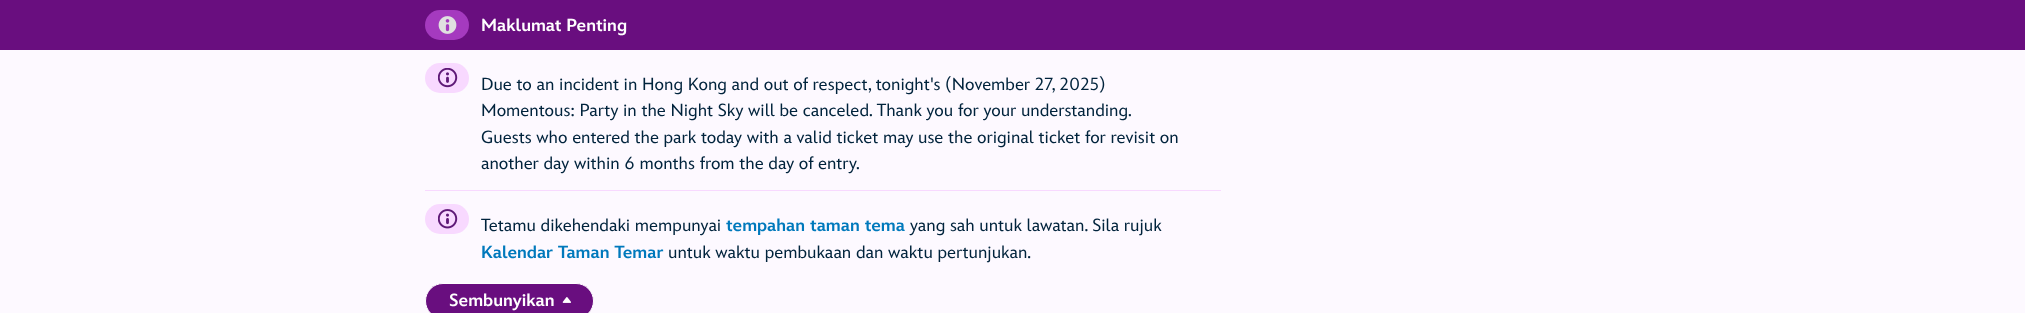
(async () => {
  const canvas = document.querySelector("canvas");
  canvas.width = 2025;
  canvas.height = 313;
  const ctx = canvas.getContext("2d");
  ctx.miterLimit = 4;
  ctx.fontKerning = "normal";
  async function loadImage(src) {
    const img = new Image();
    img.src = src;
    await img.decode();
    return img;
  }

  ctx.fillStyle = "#690e7f";
  ctx.fillRect(0, 0, 2025, 313);
  ctx.fillStyle = "#a53abf";
  ctx.beginPath();
  ctx.roundRect(425, 10, 44, 30, 15);
  ctx.fill();
  ctx.drawImage(await loadImage("img/1.png"), 438, 16, 19, 18);
  ctx.fillStyle = "#fdf9ff";
  ctx.fillRect(0, 50, 2025, 263);
  ctx.fillStyle = "#f8d9ff";
  ctx.fillRect(425, 190, 796, 1);
  ctx.beginPath();
  ctx.roundRect(425, 63, 44, 30, 15);
  ctx.fill();
  ctx.drawImage(await loadImage("img/2.png"), 438, 68, 20, 20);
  ctx.beginPath();
  ctx.roundRect(425, 204, 44, 30, 15);
  ctx.fill();
  ctx.drawImage(await loadImage("img/3.png"), 438, 209, 20, 20);
  ctx.fillStyle = "#690e7f";
  ctx.beginPath();
  ctx.roundRect(425.5, 283.5, 168, 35, 17.5);
  ctx.fill();
  ctx.strokeStyle = "#ffffff";
  ctx.stroke();
  ctx.drawImage(await loadImage("img/4.png"), 562, 297, 9, 6);
  ctx.font = "900 17.5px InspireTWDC";
  ctx.fillStyle = "#ffffff";
  ctx.fillText("Maklumat Penting", 481, 31);
  ctx.font = "17.5px InspireTWDC";
  ctx.fillStyle = "#00233c";
  for (const [text, x, y] of [
    ["Due to an incident in Hong Kong and out of respect, tonight's (November 27, 2025)", 481, 90],
    ["Momentous: Party in the Night Sky will be canceled. Thank you for your understanding.", 481, 116],
    ["Guests who entered the park today with a valid ticket may use the original ticket for revisit on", 481, 143],
    ["another day within 6 months from the day of entry.", 481, 169],
    ["Tetamu dikehendaki mempunyai", 481, 231],
  ]) {
    ctx.fillText(text, x, y);
  }
  ctx.font = "900 17.5px InspireTWDC";
  ctx.fillStyle = "#0079bc";
  ctx.fillText("tempahan taman tema", 726, 231);
  ctx.font = "17.5px InspireTWDC";
  ctx.fillStyle = "#00233c";
  ctx.fillText("yang sah untuk lawatan. Sila rujuk", 910, 231);
  ctx.font = "900 17.5px InspireTWDC";
  ctx.fillStyle = "#0079bc";
  ctx.fillText("Kalendar Taman Temar", 481, 258);
  ctx.font = "17.5px InspireTWDC";
  ctx.fillStyle = "#00233c";
  ctx.fillText("untuk waktu pembukaan dan waktu pertunjukan.", 668, 258);
  ctx.font = "900 17.5px InspireTWDC";
  ctx.fillStyle = "#ffffff";
  ctx.fillText("Sembunyikan", 449, 306);
})();
